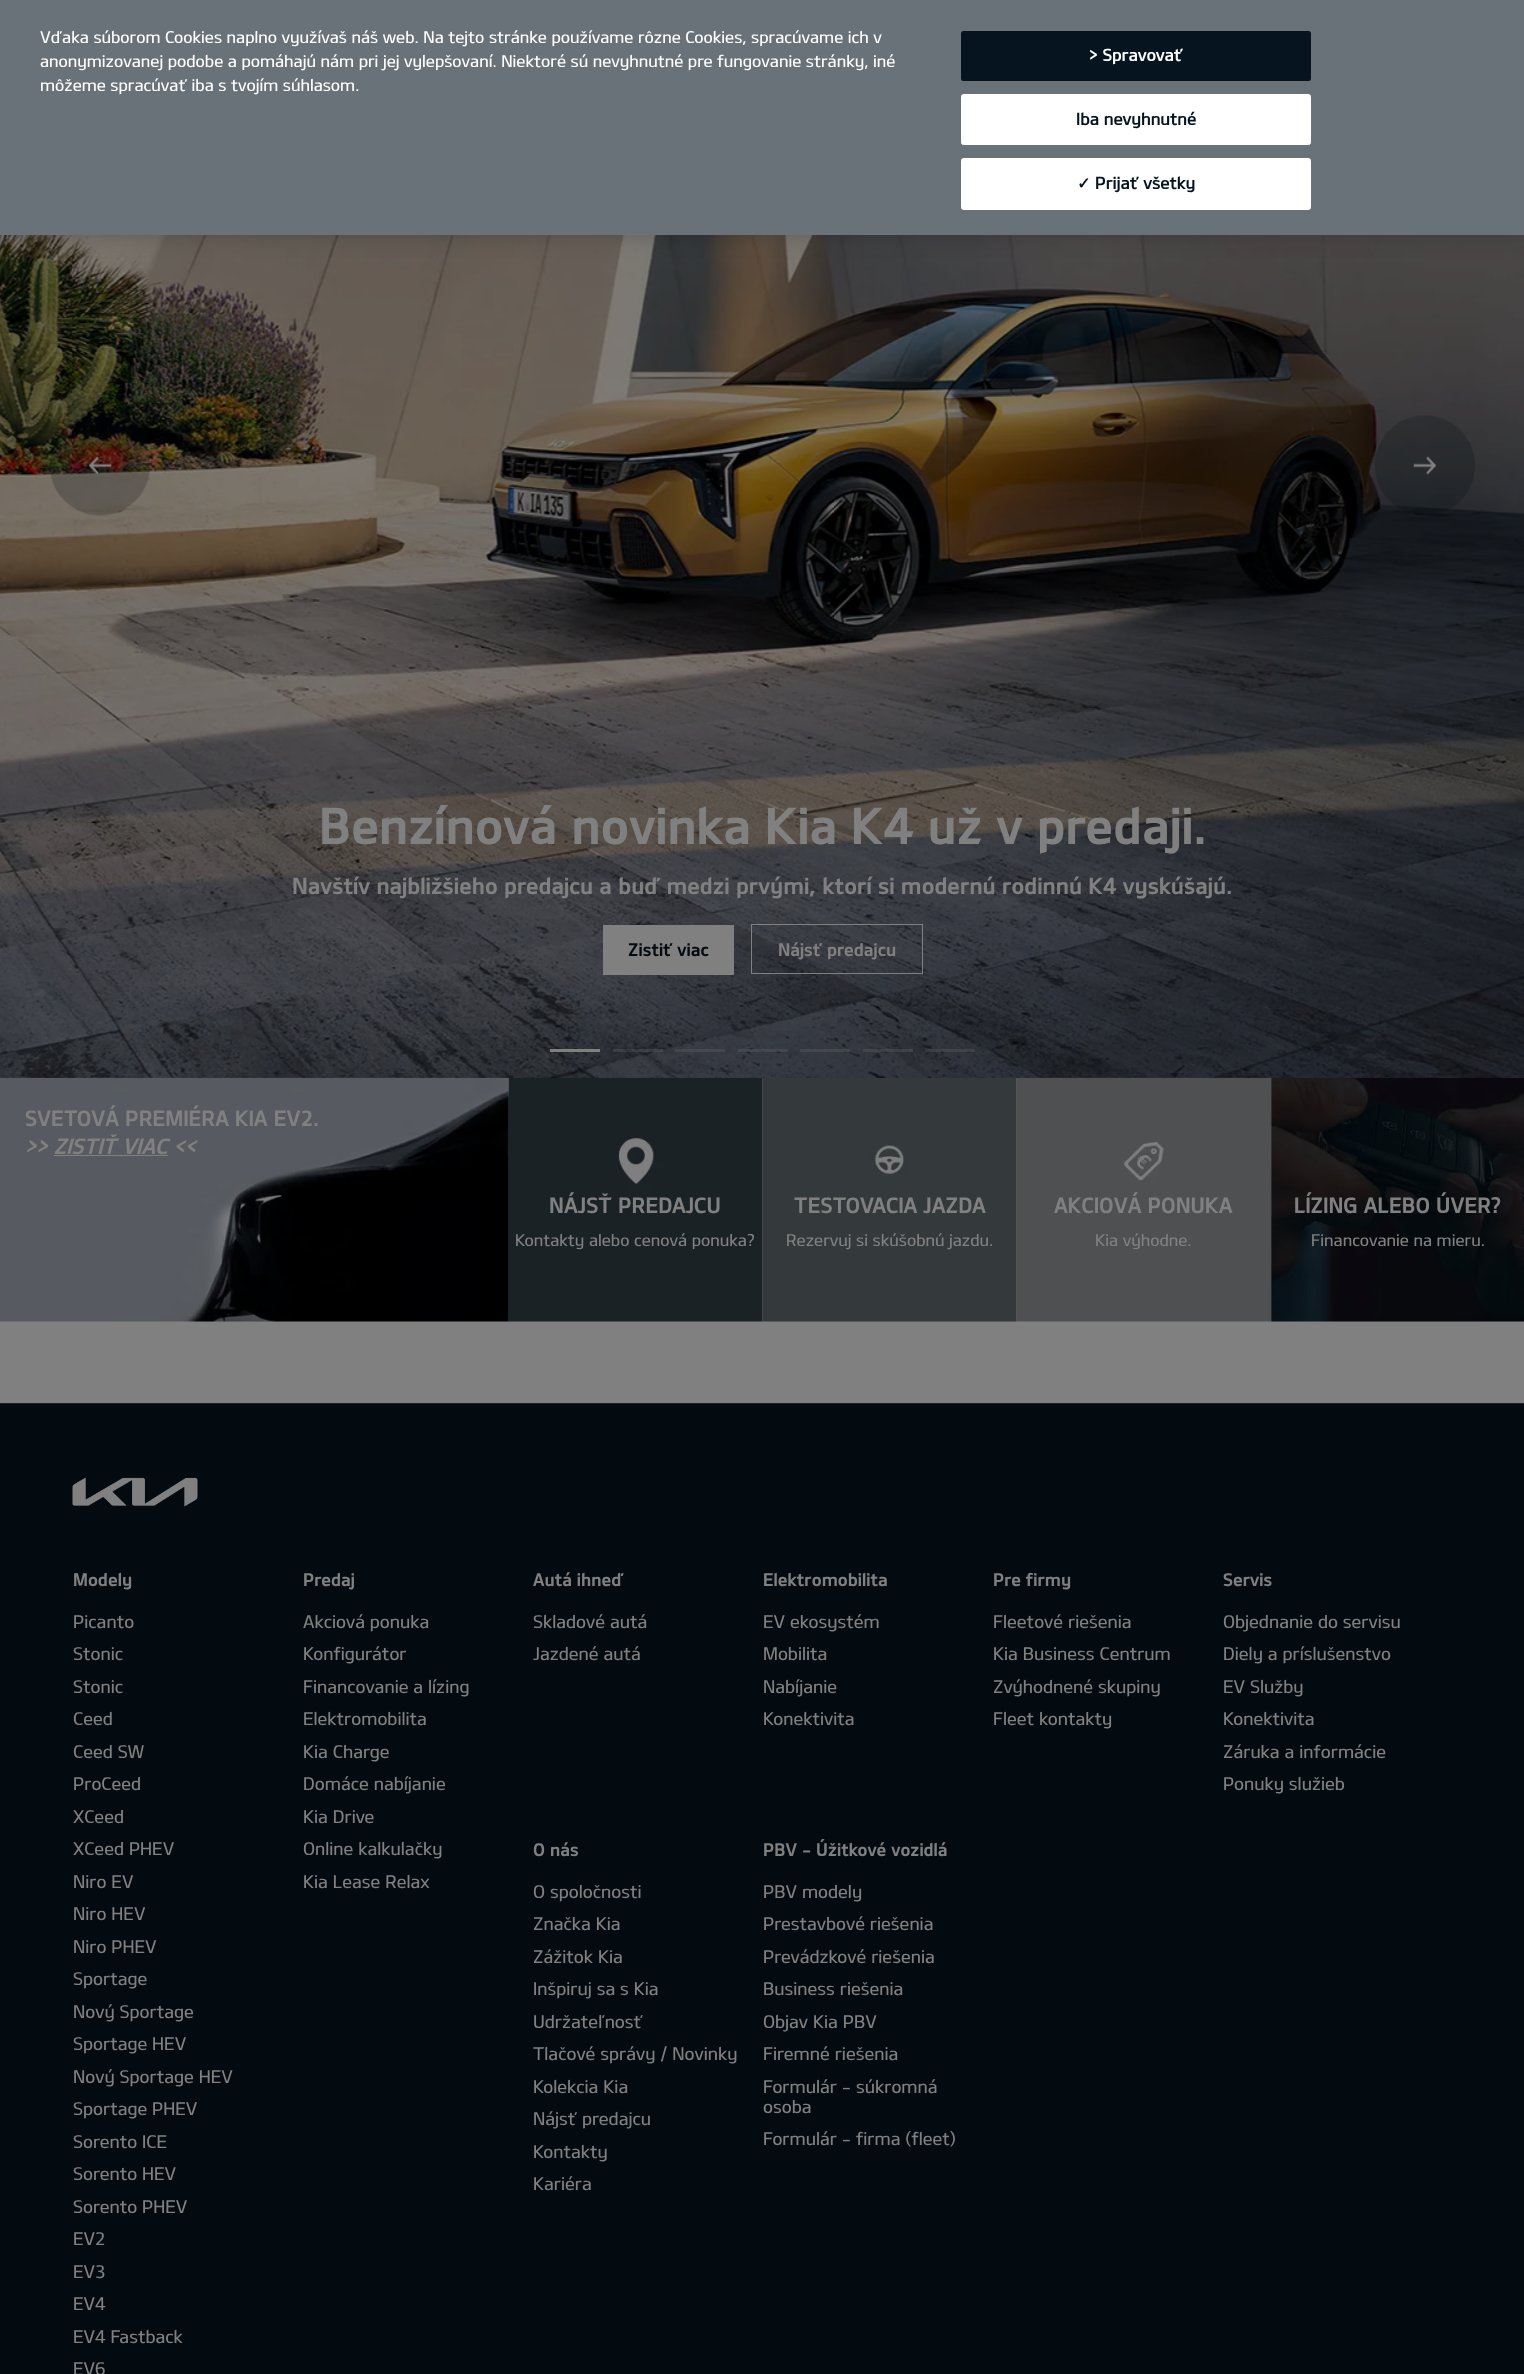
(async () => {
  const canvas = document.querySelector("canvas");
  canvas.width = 1524;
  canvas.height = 2374;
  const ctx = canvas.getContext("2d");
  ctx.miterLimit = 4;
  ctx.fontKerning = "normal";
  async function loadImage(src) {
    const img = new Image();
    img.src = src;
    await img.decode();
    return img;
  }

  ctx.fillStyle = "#808080";
  ctx.fillRect(0, 0, 1524, 2374);
  ctx.drawImage(await loadImage("img/1.png"), 0, 235, 1524, 843);
  ctx.fillStyle = "rgba(0, 0, 0, 0.2)";
  ctx.filter = "blur(11px)";
  ctx.beginPath();
  ctx.rect(0, 0, 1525, 235);
  ctx.fill();
  ctx.filter = "none";
  ctx.fillStyle = "#697279";
  ctx.fillRect(0, 0, 1524, 235);
  ctx.fillStyle = "#05141f";
  ctx.beginPath();
  ctx.roundRect(961, 31, 350, 50, 2.5);
  ctx.fill();
  ctx.fillStyle = "#ffffff";
  ctx.beginPath();
  ctx.roundRect(961.5, 94.5, 349, 50, 2);
  ctx.fill();
  ctx.strokeStyle = "#ffffff";
  ctx.stroke();
  ctx.beginPath();
  ctx.roundRect(961.5, 158.5, 349, 51, 2);
  ctx.fill();
  ctx.stroke();
  ctx.drawImage(await loadImage("img/2.png"), 50, 415, 100, 101);
  ctx.drawImage(await loadImage("img/3.png"), 1375, 415, 100, 100);
  ctx.fillStyle = "#808080";
  ctx.fillRect(603, 925, 131, 50);
  ctx.strokeStyle = "#808080";
  ctx.strokeRect(751.5, 924.5, 171, 49);
  ctx.drawImage(await loadImage("img/4.png"), 0, 1077, 509, 245);
  ctx.fillRect(54, 1155, 114, 1);
  ctx.drawImage(await loadImage("img/5.png"), 508, 1077, 255, 245);
  ctx.drawImage(await loadImage("img/6.png"), 762, 1077, 255, 245);
  ctx.drawImage(await loadImage("img/7.png"), 1016, 1077, 256, 245);
  ctx.drawImage(await loadImage("img/8.png"), 1271, 1077, 253, 245);
  for (const [x, y, w, h, color] of [
    [550, 1049, 50, 3, "#808080"],
    [613, 1049, 50, 3, "rgba(128, 128, 128, 0.2)"],
    [675, 1049, 50, 3, "rgba(128, 128, 128, 0.2)"],
    [738, 1049, 50, 3, "rgba(128, 128, 128, 0.2)"],
    [800, 1049, 50, 3, "rgba(128, 128, 128, 0.2)"],
    [863, 1049, 50, 3, "rgba(128, 128, 128, 0.2)"],
    [925, 1049, 50, 3, "rgba(128, 128, 128, 0.2)"],
    [0, 1404, 1524, 970, "#030a10"],
    [0, 1403, 1524, 1, "#1b2125"],
  ]) {
    ctx.fillStyle = color;
    ctx.fillRect(x, y, w, h);
  }
  ctx.drawImage(await loadImage("img/9.png"), 72, 1477, 126, 30);
  ctx.font = "16.25px 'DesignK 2'";
  ctx.fillStyle = "#ffffff";
  for (const [text, x, y] of [
    ["Vďaka súborom Cookies naplno využívaš náš web. Na tejto stránke používame rôzne Cookies, spracúvame ich v", 40, 43],
    ["anonymizovanej podobe a pomáhajú nám pri jej vylepšovaní. Niektoré sú nevyhnutné pre fungovanie stránky, iné", 40, 67],
    ["môžeme spracúvať iba s tvojím súhlasom.", 40, 91],
  ]) {
    ctx.fillText(text, x, y);
  }
  ctx.letterSpacing = "0.2px";
  ctx.font = "bold 16.25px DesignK";
  ctx.fillText("> Spravovať", 1089, 61);
  ctx.fillStyle = "#05141f";
  ctx.fillText("Iba nevyhnutné", 1076, 125);
  ctx.font = "bold 16.25px DejaVu Sans";
  ctx.fillText("✓", 1077, 189);
  ctx.font = "bold 16.25px DesignK";
  ctx.fillText("Prijať všetky", 1095, 189);
  ctx.letterSpacing = "0px";
  ctx.font = "50px DesignK";
  ctx.fillStyle = "#808080";
  ctx.fillText("Benzínová novinka Kia K4 už v predaji.", 319, 844);
  ctx.font = "22.5px DesignK";
  ctx.fillText("Navštív najbližšieho predajcu a buď medzi prvými, ktorí si modernú rodinnú K4 vyskúšajú.", 292, 894);
  ctx.font = "17.5px DesignK";
  ctx.fillStyle = "#030a10";
  ctx.fillText("Zistiť viac", 628, 956);
  ctx.fillStyle = "#808080";
  ctx.fillText("Nájsť predajcu", 778, 956);
  ctx.font = "21.25px DesignK";
  ctx.fillText("SVETOVÁ PREMIÉRA KIA EV2.", 25, 1126);
  ctx.font = "italic 21.25px DesignK";
  ctx.fillText(">> ZISTIŤ VIAC <<", 25, 1154);
  ctx.font = "21.25px DesignK";
  ctx.fillText("NÁJSŤ PREDAJCU", 549, 1213);
  ctx.font = "16.25px 'DesignK 2'";
  ctx.fillText("Kontakty alebo cenová ponuka?", 515, 1246);
  ctx.font = "21.25px DesignK";
  ctx.fillText("TESTOVACIA JAZDA", 794, 1213);
  ctx.font = "16.25px 'DesignK 2'";
  ctx.fillText("Rezervuj si skúšobnú jazdu.", 786, 1246);
  ctx.font = "21.25px DesignK";
  ctx.fillText("AKCIOVÁ PONUKA", 1054, 1213);
  ctx.font = "16.25px 'DesignK 2'";
  ctx.fillText("Kia výhodne.", 1095, 1246);
  ctx.font = "21.25px DesignK";
  ctx.fillText("LÍZING ALEBO ÚVER?", 1294, 1213);
  ctx.font = "16.25px 'DesignK 2'";
  ctx.fillText("Financovanie na mieru.", 1311, 1246);
  ctx.font = "17.5px DesignK";
  ctx.fillText("Modely", 73, 1586);
  ctx.font = "17.5px 'DesignK 2'";
  for (const [text, x, y] of [
    ["Picanto", 73, 1628],
    ["Stonic", 73, 1660],
    ["Stonic", 73, 1693],
    ["Ceed", 73, 1725],
    ["Ceed SW", 73, 1758],
    ["ProCeed", 73, 1790],
    ["XCeed", 73, 1823],
    ["XCeed PHEV", 73, 1855],
    ["Niro EV", 73, 1888],
    ["Niro HEV", 73, 1920],
    ["Niro PHEV", 73, 1953],
    ["Sportage", 73, 1985],
    ["Nový Sportage", 73, 2018],
    ["Sportage HEV", 73, 2050],
    ["Nový Sportage HEV", 73, 2083],
    ["Sportage PHEV", 73, 2115],
    ["Sorento ICE", 73, 2148],
    ["Sorento HEV", 73, 2180],
    ["Sorento PHEV", 73, 2213],
    ["EV2", 73, 2245],
    ["EV3", 73, 2278],
    ["EV4", 73, 2310],
    ["EV4 Fastback", 73, 2343],
    ["EV6", 73, 2375],
  ]) {
    ctx.fillText(text, x, y);
  }
  ctx.font = "17.5px DesignK";
  ctx.fillText("Predaj", 303, 1586);
  ctx.font = "17.5px 'DesignK 2'";
  for (const [text, x, y] of [
    ["Akciová ponuka", 303, 1628],
    ["Konfigurátor", 303, 1660],
    ["Financovanie a lízing", 303, 1693],
    ["Elektromobilita", 303, 1725],
    ["Kia Charge", 303, 1758],
    ["Domáce nabíjanie", 303, 1790],
    ["Kia Drive", 303, 1823],
    ["Online kalkulačky", 303, 1855],
    ["Kia Lease Relax", 303, 1888],
  ]) {
    ctx.fillText(text, x, y);
  }
  ctx.font = "17.5px DesignK";
  ctx.fillText("Autá ihneď", 533, 1586);
  ctx.font = "17.5px 'DesignK 2'";
  ctx.fillText("Skladové autá", 533, 1628);
  ctx.fillText("Jazdené autá", 533, 1660);
  ctx.font = "17.5px DesignK";
  ctx.fillText("Elektromobilita", 763, 1586);
  ctx.font = "17.5px 'DesignK 2'";
  for (const [text, x, y] of [
    ["EV ekosystém", 763, 1628],
    ["Mobilita", 763, 1660],
    ["Nabíjanie", 763, 1693],
    ["Konektivita", 763, 1725],
  ]) {
    ctx.fillText(text, x, y);
  }
  ctx.font = "17.5px DesignK";
  ctx.fillText("Pre firmy", 993, 1586);
  ctx.font = "17.5px 'DesignK 2'";
  for (const [text, x, y] of [
    ["Fleetové riešenia", 993, 1628],
    ["Kia Business Centrum", 993, 1660],
    ["Zvýhodnené skupiny", 993, 1693],
    ["Fleet kontakty", 993, 1725],
  ]) {
    ctx.fillText(text, x, y);
  }
  ctx.font = "17.5px DesignK";
  ctx.fillText("Servis", 1223, 1586);
  ctx.font = "17.5px 'DesignK 2'";
  for (const [text, x, y] of [
    ["Objednanie do servisu", 1223, 1628],
    ["Diely a príslušenstvo", 1223, 1660],
    ["EV Služby", 1223, 1693],
    ["Konektivita", 1223, 1725],
    ["Záruka a informácie", 1223, 1758],
    ["Ponuky služieb", 1223, 1790],
  ]) {
    ctx.fillText(text, x, y);
  }
  ctx.font = "17.5px DesignK";
  ctx.fillText("O nás", 533, 1856);
  ctx.font = "17.5px 'DesignK 2'";
  for (const [text, x, y] of [
    ["O spoločnosti", 533, 1898],
    ["Značka Kia", 533, 1930],
    ["Zážitok Kia", 533, 1963],
    ["Inšpiruj sa s Kia", 533, 1995],
    ["Udržateľnosť", 533, 2028],
    ["Tlačové správy / Novinky", 533, 2060],
    ["Kolekcia Kia", 533, 2093],
    ["Nájsť predajcu", 533, 2125],
    ["Kontakty", 533, 2158],
    ["Kariéra", 533, 2190],
  ]) {
    ctx.fillText(text, x, y);
  }
  ctx.font = "17.5px DesignK";
  ctx.fillText("PBV - Úžitkové vozidlá", 763, 1856);
  ctx.font = "17.5px 'DesignK 2'";
  for (const [text, x, y] of [
    ["PBV modely", 763, 1898],
    ["Prestavbové riešenia", 763, 1930],
    ["Prevádzkové riešenia", 763, 1963],
    ["Business riešenia", 763, 1995],
    ["Objav Kia PBV", 763, 2028],
    ["Firemné riešenia", 763, 2060],
    ["Formulár - súkromná", 763, 2093],
    ["osoba", 763, 2113],
    ["Formulár - firma (fleet)", 763, 2145],
  ]) {
    ctx.fillText(text, x, y);
  }
})();
